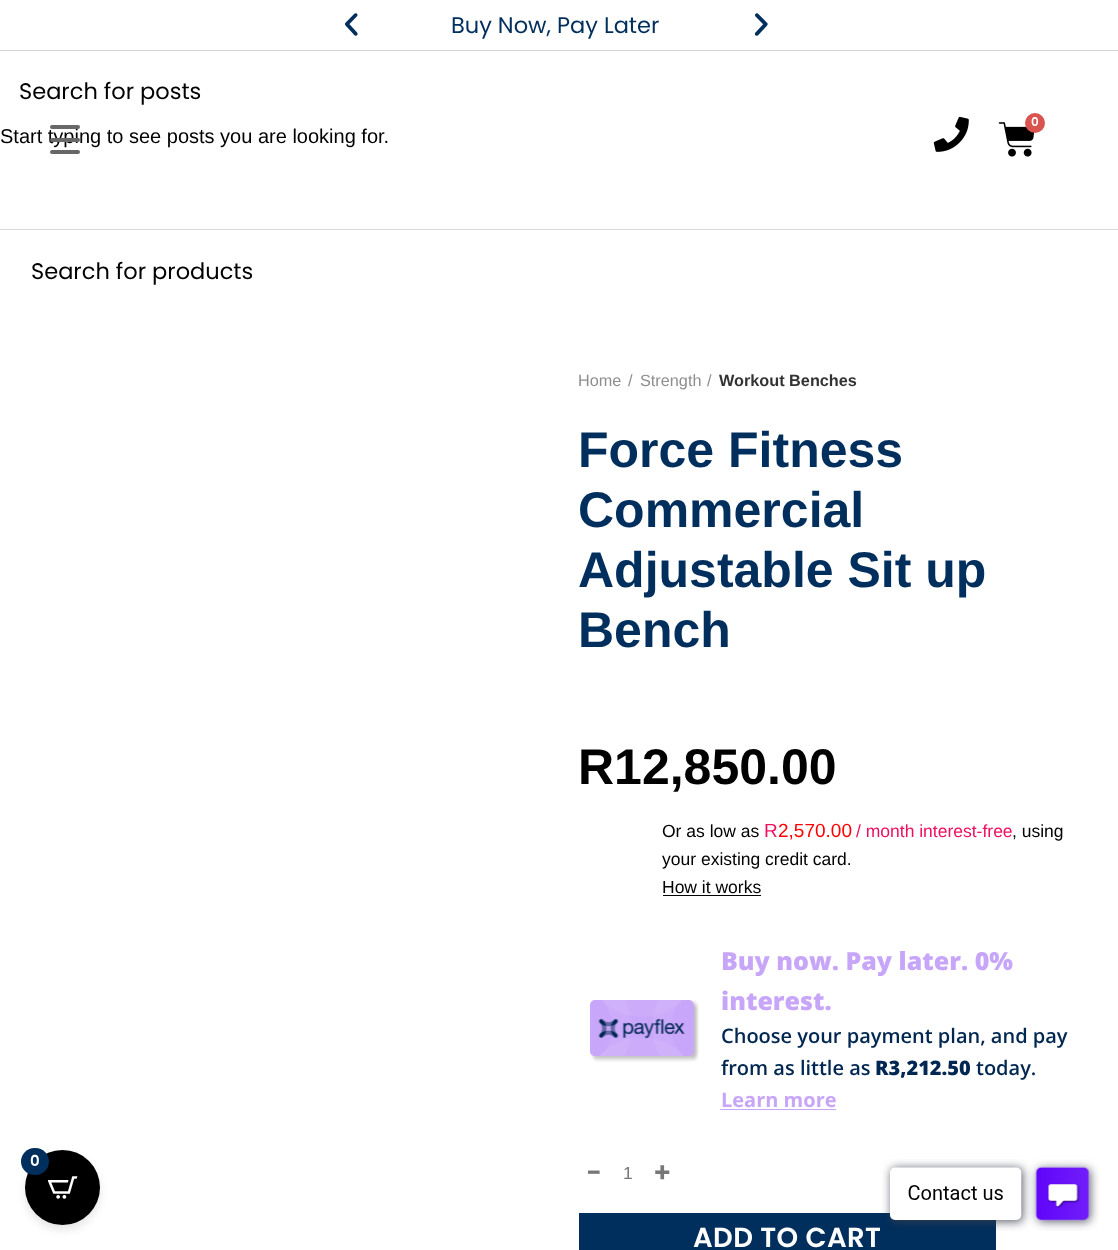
(async () => {
  const canvas = document.querySelector("canvas");
  canvas.width = 1118;
  canvas.height = 1250;
  const ctx = canvas.getContext("2d");
  ctx.miterLimit = 4;
  ctx.fontKerning = "normal";
  async function loadImage(src) {
    const img = new Image();
    img.src = src;
    await img.decode();
    return img;
  }

  ctx.fillStyle = "#ffffff";
  ctx.fillRect(0, 0, 1118, 1250);
  ctx.fillStyle = "#d3d3d3";
  ctx.fillRect(0, 50, 1118, 1);
  ctx.drawImage(await loadImage("img/1.png"), 345, 13, 13, 23);
  ctx.drawImage(await loadImage("img/2.png"), 754, 13, 14, 23);
  ctx.fillStyle = "#d9d9d9";
  ctx.fillRect(0, 229, 1118, 1);
  ctx.drawImage(await loadImage("img/3.png"), 933, 116, 36, 36);
  ctx.drawImage(await loadImage("img/4.png"), 998, 122, 37, 35);
  ctx.fillStyle = "#d9534f";
  ctx.beginPath();
  ctx.arc(1035, 123, 10, 0, Math.PI * 2);
  ctx.fill();
  ctx.fillStyle = "#686868";
  ctx.beginPath();
  ctx.roundRect(50, 150, 30, 4, 2);
  ctx.fill();
  ctx.fillStyle = "#000000";
  ctx.fillRect(663, 895, 98, 1);
  ctx.drawImage(await loadImage("img/5.png"), 590, 1000, 109, 62);
  ctx.fillStyle = "#c7a5f9";
  ctx.fillRect(720, 1109, 116, 1);
  ctx.fillStyle = "#002e5d";
  ctx.fillRect(579, 1213, 417, 37);
  ctx.fillStyle = "rgba(0, 0, 0, 0.1)";
  ctx.filter = "blur(4.5px)";
  ctx.beginPath();
  ctx.roundRect(25, 1155, 75, 75, 37.5);
  ctx.fill();
  ctx.filter = "none";
  ctx.fillStyle = "#000000";
  ctx.beginPath();
  ctx.arc(62.5, 1187.5, 37.5, 0, Math.PI * 2);
  ctx.fill();
  ctx.fillStyle = "#002e5d";
  ctx.beginPath();
  ctx.roundRect(21, 1148, 28, 27, 13.5);
  ctx.fill();
  ctx.drawImage(await loadImage("img/6.png"), 48, 1176, 30, 23);
  ctx.drawImage(await loadImage("img/7.png"), 882, 1159, 217, 72);
  ctx.font = "22.5px Poppins";
  ctx.fillText("Buy Now, Pay Later", 451, 33);
  ctx.font = "600 12px Poppins";
  ctx.fillStyle = "#ffffff";
  ctx.fillText("0", 1031, 126);
  ctx.font = "22.5px Poppins";
  ctx.fillStyle = "#000000";
  ctx.fillText("Search for products", 31, 279);
  ctx.font = "16.25px Liberation Sans";
  ctx.fillStyle = "#8e8e8e";
  for (const [text, x, y] of [
    ["Home", 578, 386],
    ["/", 628, 386],
    ["Strength", 640, 386],
    ["/", 707, 386],
  ]) {
    ctx.fillText(text, x, y);
  }
  ctx.font = "bold 16.25px Liberation Sans";
  ctx.fillStyle = "#333333";
  ctx.fillText("Workout Benches", 719, 386);
  ctx.font = "bold 50px Liberation Sans";
  ctx.fillStyle = "#002e5d";
  for (const [text, x, y] of [
    ["Force Fitness", 578, 467],
    ["Commercial", 578, 527],
    ["Adjustable Sit up", 578, 587],
    ["Bench", 578, 647],
  ]) {
    ctx.fillText(text, x, y);
  }
  ctx.fillStyle = "#000000";
  ctx.fillText("R12,850.00", 578, 784);
  ctx.font = "17.5px Liberation Sans";
  ctx.fillText("Or as low as", 662, 837);
  ctx.font = "19px Liberation Sans";
  ctx.fillStyle = "#ef0f60";
  ctx.fillText("R", 764, 837);
  ctx.fillStyle = "#ff0000";
  ctx.fillText("2,570.00", 778, 837);
  ctx.font = "17.5px Liberation Sans";
  ctx.fillStyle = "#ef0f60";
  ctx.fillText("/ month interest-free", 856, 837);
  ctx.fillStyle = "#000000";
  for (const [text, x, y] of [
    [", using", 1012, 837],
    ["your existing credit card.", 662, 865],
    ["How it works", 662, 893],
  ]) {
    ctx.fillText(text, x, y);
  }
  ctx.font = "800 25px Open Sans";
  ctx.fillStyle = "#c7a5f9";
  ctx.fillText("Buy now. Pay later. 0%", 721, 970);
  ctx.fillText("interest.", 721, 1010);
  ctx.font = "600 20px Open Sans";
  ctx.fillStyle = "#002751";
  ctx.fillText("Choose your payment plan, and pay", 721, 1043);
  ctx.fillText("from as little as", 721, 1075);
  ctx.font = "800 20px Open Sans";
  ctx.fillText("R3,212.50", 875, 1075);
  ctx.font = "600 20px Open Sans";
  ctx.fillText("today.", 976, 1075);
  ctx.font = "bold 20px Open Sans";
  ctx.fillStyle = "#c7a5f9";
  ctx.fillText("Learn more", 721, 1107);
  ctx.letterSpacing = "0.4px";
  ctx.font = "600 27.5px Poppins";
  ctx.fillStyle = "#777777";
  ctx.fillText("-", 586, 1182);
  ctx.letterSpacing = "0px";
  ctx.font = "17.5px Liberation Sans";
  ctx.fillText("1", 623, 1179);
  ctx.letterSpacing = "0.4px";
  ctx.font = "600 27.5px Poppins";
  ctx.fillText("+", 653, 1182);
  ctx.fillStyle = "#ffffff";
  ctx.fillText("ADD TO CART", 693, 1247);
  ctx.letterSpacing = "0px";
  ctx.font = "22.5px Poppins";
  ctx.fillStyle = "#000000";
  ctx.fillText("Search for posts", 19, 99);
  ctx.font = "20px Liberation Sans";
  ctx.fillText("Start typing to see posts you are looking for.", 0, 143);
  ctx.fillStyle = "#686868";
  ctx.beginPath();
  ctx.roundRect(50, 125, 30, 4, 2);
  ctx.fill();
  ctx.beginPath();
  ctx.roundRect(50, 138, 30, 4, 2);
  ctx.fill();
  ctx.letterSpacing = "0.4px";
  ctx.font = "600 15px Poppins";
  ctx.fillStyle = "#ffffff";
  ctx.fillText("0", 30, 1166);
})();
